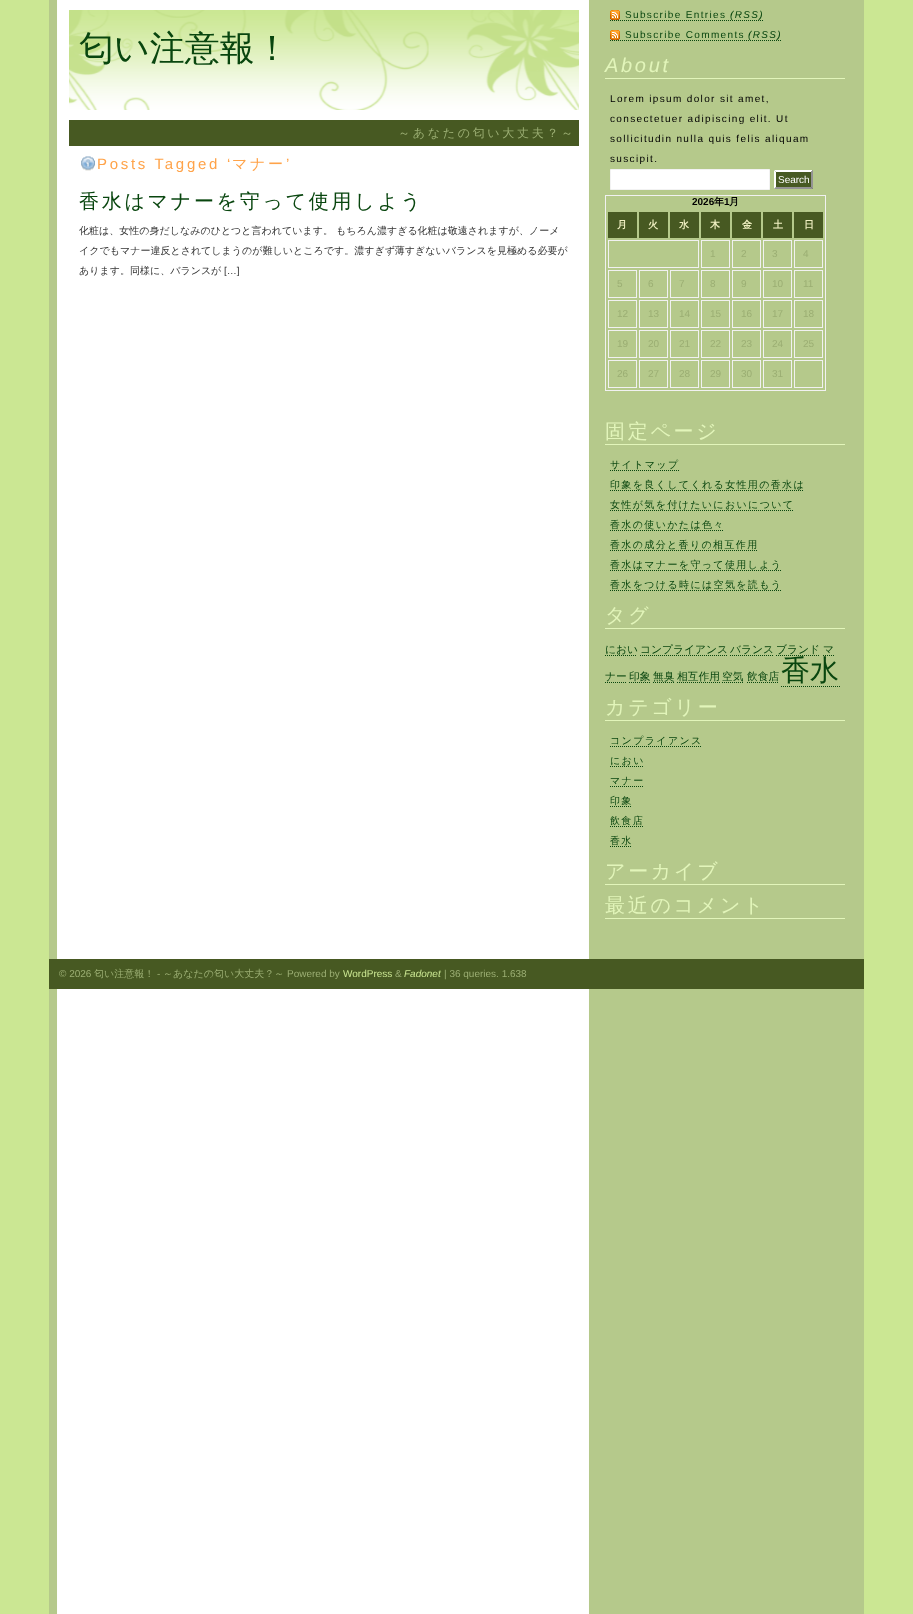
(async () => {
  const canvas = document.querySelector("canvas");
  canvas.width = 913;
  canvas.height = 1614;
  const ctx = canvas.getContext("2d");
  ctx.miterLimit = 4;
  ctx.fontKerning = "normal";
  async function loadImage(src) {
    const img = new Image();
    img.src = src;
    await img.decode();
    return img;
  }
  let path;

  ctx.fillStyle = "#cbe793";
  ctx.fillRect(0, 0, 913, 1614);
  ctx.drawImage(await loadImage("img/1.png"), 49, 0, 815, 1614);
  ctx.drawImage(await loadImage("img/2.png"), 69, 10, 510, 100);
  ctx.fillStyle = "#475922";
  ctx.fillRect(69, 120, 510, 26);
  ctx.drawImage(await loadImage("img/3.png"), 81, 156, 14, 15);
  ctx.drawImage(await loadImage("img/4.png"), 610, 10, 10, 10);
  path = new Path2D("M610 20.5H730");
  ctx.strokeStyle = "#09460f";
  ctx.setLineDash([1, 1]);
  ctx.stroke(path);
  path = new Path2D("M730 20.5H764");
  ctx.stroke(path);
  ctx.drawImage(await loadImage("img/4.png"), 610, 30, 10, 10);
  path = new Path2D("M610 40.5H748");
  ctx.stroke(path);
  path = new Path2D("M748 40.5H782");
  ctx.stroke(path);
  ctx.fillStyle = "#e2f5ba";
  ctx.fillRect(605, 78, 240, 1);
  ctx.fillStyle = "#ffffff";
  ctx.beginPath();
  ctx.rect(610.5, 169.5, 159, 20);
  ctx.fill();
  ctx.strokeStyle = "#f2f2f2";
  ctx.setLineDash([]);
  ctx.stroke();
  ctx.fillStyle = "#475922";
  ctx.fillRect(774, 170, 39, 19);
  ctx.fillStyle = "#ffffff";
  path = new Path2D("M774 170H813L811 172H776Z");
  ctx.fill(path);
  ctx.fillStyle = "#939393";
  path = new Path2D("M813 170V189L811 187V172Z");
  ctx.fill(path);
  path = new Path2D("M813 189H774L776 187H811Z");
  ctx.fill(path);
  ctx.fillStyle = "#ffffff";
  path = new Path2D("M774 189V170L776 172V187Z");
  ctx.fill(path);
  ctx.strokeStyle = "#f1f1f1";
  ctx.strokeRect(605.5, 195.5, 220, 195);
  for (const [x, y, w, h, color] of [
    [608, 212, 29, 26, "#475922"],
    [639, 212, 29, 26, "#475922"],
    [670, 212, 29, 26, "#475922"],
    [701, 212, 29, 26, "#475922"],
    [732, 212, 29, 26, "#475922"],
    [763, 212, 29, 26, "#475922"],
    [794, 212, 29, 26, "#475922"],
  ]) {
    ctx.fillStyle = color;
    ctx.fillRect(x, y, w, h);
  }
  ctx.strokeRect(608.5, 240.5, 90, 27);
  ctx.strokeRect(701.5, 240.5, 28, 27);
  ctx.strokeRect(732.5, 240.5, 28, 27);
  ctx.strokeRect(763.5, 240.5, 28, 27);
  ctx.strokeRect(794.5, 240.5, 28, 27);
  ctx.strokeRect(608.5, 270.5, 28, 27);
  ctx.strokeRect(639.5, 270.5, 28, 27);
  ctx.strokeRect(670.5, 270.5, 28, 27);
  ctx.strokeRect(701.5, 270.5, 28, 27);
  ctx.strokeRect(732.5, 270.5, 28, 27);
  ctx.strokeRect(763.5, 270.5, 28, 27);
  ctx.strokeRect(794.5, 270.5, 28, 27);
  ctx.strokeRect(608.5, 300.5, 28, 27);
  ctx.strokeRect(639.5, 300.5, 28, 27);
  ctx.strokeRect(670.5, 300.5, 28, 27);
  ctx.strokeRect(701.5, 300.5, 28, 27);
  ctx.strokeRect(732.5, 300.5, 28, 27);
  ctx.strokeRect(763.5, 300.5, 28, 27);
  ctx.strokeRect(794.5, 300.5, 28, 27);
  ctx.strokeRect(608.5, 330.5, 28, 27);
  ctx.strokeRect(639.5, 330.5, 28, 27);
  ctx.strokeRect(670.5, 330.5, 28, 27);
  ctx.strokeRect(701.5, 330.5, 28, 27);
  ctx.strokeRect(732.5, 330.5, 28, 27);
  ctx.strokeRect(763.5, 330.5, 28, 27);
  ctx.strokeRect(794.5, 330.5, 28, 27);
  ctx.strokeRect(608.5, 360.5, 28, 27);
  ctx.strokeRect(639.5, 360.5, 28, 27);
  ctx.strokeRect(670.5, 360.5, 28, 27);
  ctx.strokeRect(701.5, 360.5, 28, 27);
  ctx.strokeRect(732.5, 360.5, 28, 27);
  ctx.strokeRect(763.5, 360.5, 28, 27);
  ctx.strokeRect(794.5, 360.5, 28, 27);
  ctx.fillStyle = "#e2f5ba";
  ctx.fillRect(605, 444, 240, 1);
  path = new Path2D("M610 470.5H679");
  ctx.strokeStyle = "#09460f";
  ctx.setLineDash([1, 1]);
  ctx.stroke(path);
  path = new Path2D("M610 490.5H804");
  ctx.stroke(path);
  path = new Path2D("M610 510.5H794");
  ctx.stroke(path);
  path = new Path2D("M610 530.5H724");
  ctx.stroke(path);
  path = new Path2D("M610 550.5H758");
  ctx.stroke(path);
  path = new Path2D("M610 570.5H782");
  ctx.stroke(path);
  path = new Path2D("M610 590.5H782");
  ctx.stroke(path);
  ctx.fillRect(605, 628, 240, 1);
  path = new Path2D("M605 655.5H637");
  ctx.stroke(path);
  path = new Path2D("M640 655.5H727");
  ctx.stroke(path);
  path = new Path2D("M730 655.5H774");
  ctx.stroke(path);
  path = new Path2D("M776 655.5H820");
  ctx.stroke(path);
  path = new Path2D("M823 655.5H834");
  ctx.stroke(path);
  path = new Path2D("M605 682.5H626");
  ctx.stroke(path);
  path = new Path2D("M629 682.5H650");
  ctx.stroke(path);
  path = new Path2D("M653 682.5H674");
  ctx.stroke(path);
  path = new Path2D("M677 682.5H720");
  ctx.stroke(path);
  path = new Path2D("M722 682.5H744");
  ctx.stroke(path);
  path = new Path2D("M747 682.5H779");
  ctx.stroke(path);
  path = new Path2D("M781 686.5H840");
  ctx.stroke(path);
  ctx.fillRect(605, 720, 240, 1);
  path = new Path2D("M610 746.5H702");
  ctx.stroke(path);
  path = new Path2D("M610 766.5H644");
  ctx.stroke(path);
  path = new Path2D("M610 786.5H644");
  ctx.stroke(path);
  path = new Path2D("M610 806.5H632");
  ctx.stroke(path);
  path = new Path2D("M610 826.5H644");
  ctx.stroke(path);
  path = new Path2D("M610 846.5H632");
  ctx.stroke(path);
  for (const [x, y, w, h, color] of [
    [605, 884, 240, 1, "#e2f5ba"],
    [605, 918, 240, 1, "#e2f5ba"],
    [49, 959, 815, 30, "#475922"],
  ]) {
    ctx.fillStyle = color;
    ctx.fillRect(x, y, w, h);
  }
  ctx.font = "500 35px WenQuanYi Zen Hei";
  ctx.fillStyle = "#09460f";
  ctx.fillText("匂い注意報！", 79, 60);
  ctx.letterSpacing = "2.7px";
  ctx.font = "500 12px WenQuanYi Zen Hei";
  ctx.fillStyle = "#9bae73";
  ctx.fillText("～あなたの匂い大丈夫？～", 398, 137);
  ctx.font = "15px Liberation Sans";
  ctx.fillStyle = "#ffa349";
  ctx.fillText("Posts Tagged ‘", 97, 169);
  ctx.font = "500 15px WenQuanYi Zen Hei";
  ctx.fillText("マナー", 232, 169);
  ctx.font = "15px Liberation Sans";
  ctx.fillText("’", 286, 169);
  ctx.font = "500 20px WenQuanYi Zen Hei";
  ctx.fillStyle = "#09460f";
  ctx.fillText("香水はマナーを守って使用しよう", 79, 208);
  ctx.letterSpacing = "0px";
  ctx.font = "500 10px WenQuanYi Zen Hei";
  ctx.fillStyle = "#333333";
  for (const [text, x, y] of [
    ["化粧は、女性の身だしなみのひとつと言われています。 もちろん濃すぎる化粧は敬遠されますが、ノーメ", 79, 234],
    ["イクでもマナー違反とされてしまうのが難しいところです。濃すぎず薄すぎないバランスを見極める必要が", 79, 254],
    ["あります。同様に、バランスが", 79, 274],
  ]) {
    ctx.fillText(text, x, y);
  }
  ctx.font = "10px Liberation Sans";
  ctx.fillText("[…]", 224, 274);
  ctx.letterSpacing = "1.35px";
  ctx.fillStyle = "#09460f";
  ctx.fillText("Subscribe Entries", 625, 18);
  ctx.font = "italic 10px Liberation Sans";
  ctx.fillText("(RSS)", 730, 18);
  ctx.font = "10px Liberation Sans";
  ctx.fillText("Subscribe Comments", 625, 38);
  ctx.font = "italic 10px Liberation Sans";
  ctx.fillText("(RSS)", 748, 38);
  ctx.letterSpacing = "2.7px";
  ctx.font = "italic 20px Liberation Sans";
  ctx.fillStyle = "#e2f5ba";
  ctx.fillText("About", 605, 72);
  ctx.letterSpacing = "1.35px";
  ctx.font = "10px Liberation Sans";
  ctx.fillStyle = "#000000";
  for (const [text, x, y] of [
    ["Lorem ipsum dolor sit amet,", 610, 102],
    ["consectetuer adipiscing elit. Ut", 610, 122],
    ["sollicitudin nulla quis felis aliquam", 610, 142],
    ["suscipit.", 610, 162],
  ]) {
    ctx.fillText(text, x, y);
  }
  ctx.letterSpacing = "0px";
  ctx.fillStyle = "#ffffff";
  ctx.fillText("Search", 778, 183);
  ctx.font = "bold 10px Liberation Sans";
  ctx.fillStyle = "#000000";
  ctx.fillText("2026", 692, 205);
  ctx.font = "bold 10px WenQuanYi Zen Hei";
  ctx.fillText("年", 714, 205);
  ctx.font = "bold 10px Liberation Sans";
  ctx.fillText("1", 724, 205);
  ctx.font = "bold 10px WenQuanYi Zen Hei";
  ctx.fillText("月", 729, 205);
  ctx.fillStyle = "#efefc1";
  for (const [text, x, y] of [
    ["月", 617, 228],
    ["火", 648, 228],
    ["水", 679, 228],
    ["木", 710, 228],
    ["金", 742, 228],
    ["土", 773, 228],
    ["日", 804, 228],
  ]) {
    ctx.fillText(text, x, y);
  }
  ctx.font = "10px Liberation Sans";
  ctx.fillStyle = "#9bae73";
  for (const [text, x, y] of [
    ["1", 710, 257],
    ["2", 741, 257],
    ["3", 772, 257],
    ["4", 803, 257],
    ["5", 617, 287],
    ["6", 648, 287],
    ["7", 679, 287],
    ["8", 710, 287],
    ["9", 741, 287],
    ["10", 772, 287],
    ["11", 803, 287],
    ["12", 617, 317],
    ["13", 648, 317],
    ["14", 679, 317],
    ["15", 710, 317],
    ["16", 741, 317],
    ["17", 772, 317],
    ["18", 803, 317],
    ["19", 617, 347],
    ["20", 648, 347],
    ["21", 679, 347],
    ["22", 710, 347],
    ["23", 741, 347],
    ["24", 772, 347],
    ["25", 803, 347],
    ["26", 617, 377],
    ["27", 648, 377],
    ["28", 679, 377],
    ["29", 710, 377],
    ["30", 741, 377],
    ["31", 772, 377],
  ]) {
    ctx.fillText(text, x, y);
  }
  ctx.letterSpacing = "2.7px";
  ctx.font = "500 20px WenQuanYi Zen Hei";
  ctx.fillStyle = "#e2f5ba";
  ctx.fillText("固定ページ", 605, 438);
  ctx.letterSpacing = "1.35px";
  ctx.font = "500 10px WenQuanYi Zen Hei";
  ctx.fillStyle = "#09460f";
  for (const [text, x, y] of [
    ["サイトマップ", 610, 468],
    ["印象を良くしてくれる女性用の香水は", 610, 488],
    ["女性が気を付けたいにおいについて", 610, 508],
    ["香水の使いかたは色々", 610, 528],
    ["香水の成分と香りの相互作用", 610, 548],
    ["香水はマナーを守って使用しよう", 610, 568],
    ["香水をつける時には空気を読もう", 610, 588],
  ]) {
    ctx.fillText(text, x, y);
  }
  ctx.letterSpacing = "2.7px";
  ctx.font = "500 20px WenQuanYi Zen Hei";
  ctx.fillStyle = "#e2f5ba";
  ctx.fillText("タグ", 605, 622);
  ctx.letterSpacing = "0px";
  ctx.font = "500 10.75px WenQuanYi Zen Hei";
  ctx.fillStyle = "#09460f";
  for (const [text, x, y] of [
    ["におい", 605, 653],
    ["コンプライアンス", 640, 653],
    ["バランス", 730, 653],
    ["ブランド", 776, 653],
    ["マ", 823, 653],
    ["ナー", 605, 680],
    ["印象", 629, 680],
    ["無臭", 653, 680],
    ["相互作用", 677, 680],
    ["空気", 722, 680],
    ["飲食店", 747, 680],
  ]) {
    ctx.fillText(text, x, y);
  }
  ctx.font = "500 29px WenQuanYi Zen Hei";
  ctx.fillText("香水", 781, 680);
  ctx.letterSpacing = "2.7px";
  ctx.font = "500 20px WenQuanYi Zen Hei";
  ctx.fillStyle = "#e2f5ba";
  ctx.fillText("カテゴリー", 605, 714);
  ctx.letterSpacing = "1.35px";
  ctx.font = "500 10px WenQuanYi Zen Hei";
  ctx.fillStyle = "#09460f";
  for (const [text, x, y] of [
    ["コンプライアンス", 610, 744],
    ["におい", 610, 764],
    ["マナー", 610, 784],
    ["印象", 610, 804],
    ["飲食店", 610, 824],
    ["香水", 610, 844],
  ]) {
    ctx.fillText(text, x, y);
  }
  ctx.letterSpacing = "2.7px";
  ctx.font = "500 20px WenQuanYi Zen Hei";
  ctx.fillStyle = "#e2f5ba";
  ctx.fillText("アーカイブ", 605, 878);
  ctx.fillText("最近のコメント", 605, 912);
  ctx.letterSpacing = "0px";
  ctx.font = "10px Liberation Sans";
  ctx.fillStyle = "#9bae73";
  ctx.fillText("© 2026", 59, 977);
  ctx.font = "500 10px WenQuanYi Zen Hei";
  ctx.fillText("匂い注意報！", 94, 977);
  ctx.font = "10px Liberation Sans";
  ctx.fillText("-", 157, 977);
  ctx.font = "500 10px WenQuanYi Zen Hei";
  ctx.fillText("～あなたの匂い大丈夫？～", 163, 977);
  ctx.font = "10px Liberation Sans";
  ctx.fillText("Powered by", 287, 977);
  ctx.fillStyle = "#cbe793";
  ctx.fillText("WordPress", 343, 977);
  ctx.fillStyle = "#9bae73";
  ctx.fillText("&", 395, 977);
  ctx.font = "italic 10px Liberation Sans";
  ctx.fillStyle = "#cbe793";
  ctx.fillText("Fadonet", 404, 977);
  ctx.font = "10px Liberation Sans";
  ctx.fillStyle = "#9bae73";
  ctx.fillText("| 36 queries. 1.638", 444, 977);
})();
